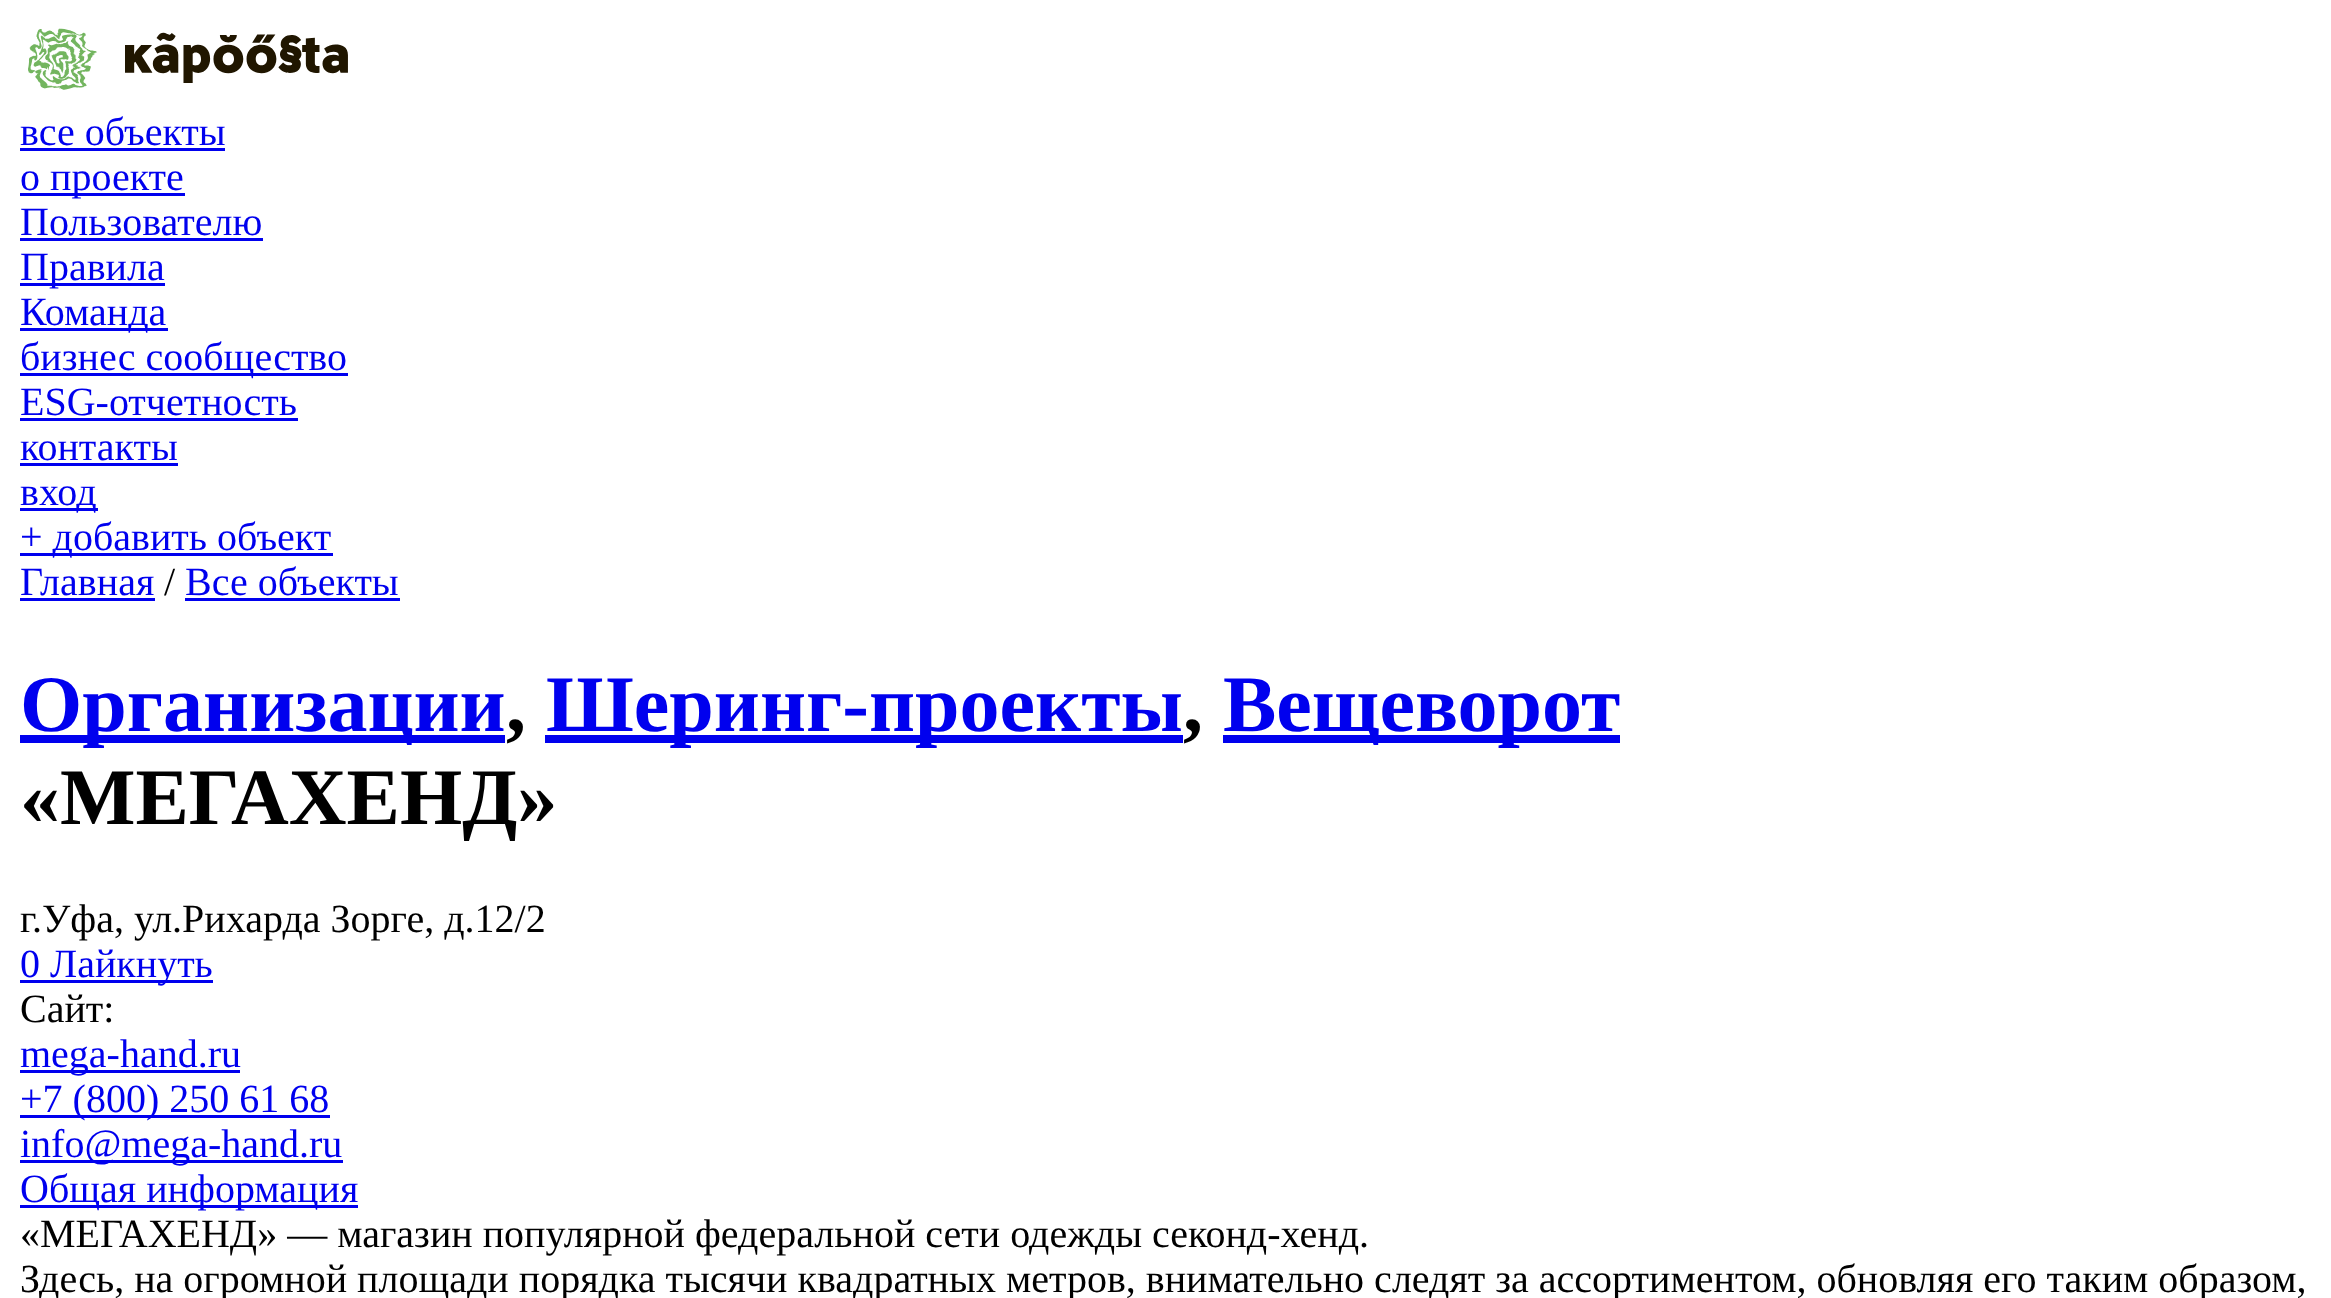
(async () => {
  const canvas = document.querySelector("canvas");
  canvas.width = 2331;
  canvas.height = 1298;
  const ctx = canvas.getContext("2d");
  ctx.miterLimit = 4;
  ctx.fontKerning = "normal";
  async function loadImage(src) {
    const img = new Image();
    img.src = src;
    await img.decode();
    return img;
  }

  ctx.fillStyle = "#ffffff";
  ctx.fillRect(0, 0, 2331, 1298);
  ctx.drawImage(await loadImage("img/1.png"), 28, 28, 320, 62);
  for (const [x, y, w, h, color] of [
    [20, 148, 205, 3, "#0000ee"],
    [20, 193, 165, 3, "#0000ee"],
    [20, 238, 243, 3, "#0000ee"],
    [20, 283, 145, 3, "#0000ee"],
    [20, 328, 148, 3, "#0000ee"],
    [20, 373, 328, 3, "#0000ee"],
    [20, 418, 278, 3, "#0000ee"],
    [20, 463, 158, 3, "#0000ee"],
    [20, 508, 78, 3, "#0000ee"],
    [20, 553, 313, 3, "#0000ee"],
    [20, 598, 135, 3, "#0000ee"],
    [185, 598, 215, 3, "#0000ee"],
    [20, 735, 485, 8, "#0000ee"],
    [545, 735, 638, 8, "#0000ee"],
    [1223, 735, 397, 8, "#0000ee"],
    [20, 980, 193, 3, "#0000ee"],
    [20, 1070, 220, 3, "#0000ee"],
    [20, 1115, 310, 3, "#0000ee"],
    [20, 1160, 323, 3, "#0000ee"],
    [20, 1205, 338, 3, "#0000ee"],
  ]) {
    ctx.fillStyle = color;
    ctx.fillRect(x, y, w, h);
  }
  ctx.font = "40px Liberation Serif";
  for (const [text, x, y] of [
    ["все объекты", 20, 145],
    ["о проекте", 20, 190],
    ["Пользователю", 20, 235],
    ["Правила", 20, 280],
    ["Команда", 20, 325],
    ["бизнес сообщество", 20, 370],
    ["ESG-отчетность", 20, 415],
    ["контакты", 20, 460],
    ["вход", 20, 505],
    ["+ добавить объект", 20, 550],
    ["Главная", 20, 595],
  ]) {
    ctx.fillText(text, x, y);
  }
  ctx.fillStyle = "#000000";
  ctx.fillText("/", 164, 595);
  ctx.fillStyle = "#0000ee";
  ctx.fillText("Все объекты", 185, 595);
  ctx.font = "bold 80px Liberation Serif";
  ctx.fillText("Организации", 20, 731);
  ctx.fillStyle = "#000000";
  ctx.fillText(",", 506, 731);
  ctx.fillStyle = "#0000ee";
  ctx.fillText("Шеринг-проекты", 546, 731);
  ctx.fillStyle = "#000000";
  ctx.fillText(",", 1183, 731);
  ctx.fillStyle = "#0000ee";
  ctx.fillText("Вещеворот", 1223, 731);
  ctx.fillStyle = "#000000";
  ctx.fillText("«МЕГАХЕНД»", 20, 824);
  ctx.font = "40px Liberation Serif";
  ctx.fillText("г.Уфа, ул.Рихарда Зорге, д.12/2", 20, 932);
  ctx.fillStyle = "#0000ee";
  ctx.fillText("0 Лайкнуть", 20, 977);
  ctx.fillStyle = "#000000";
  ctx.fillText("Сайт:", 20, 1022);
  ctx.fillStyle = "#0000ee";
  for (const [text, x, y] of [
    ["mega-hand.ru", 20, 1067],
    ["+7 (800) 250 61 68", 20, 1112],
    ["info@mega-hand.ru", 20, 1157],
    ["Общая информация", 20, 1202],
  ]) {
    ctx.fillText(text, x, y);
  }
  ctx.fillStyle = "#000000";
  ctx.fillText("«МЕГАХЕНД» — магазин популярной федеральной сети одежды секонд-хенд.", 20, 1247);
  ctx.fillText("Здесь, на огромной площади порядка тысячи квадратных метров, внимательно следят за ассортиментом, обновляя его таким образом,", 20, 1292);
})();
